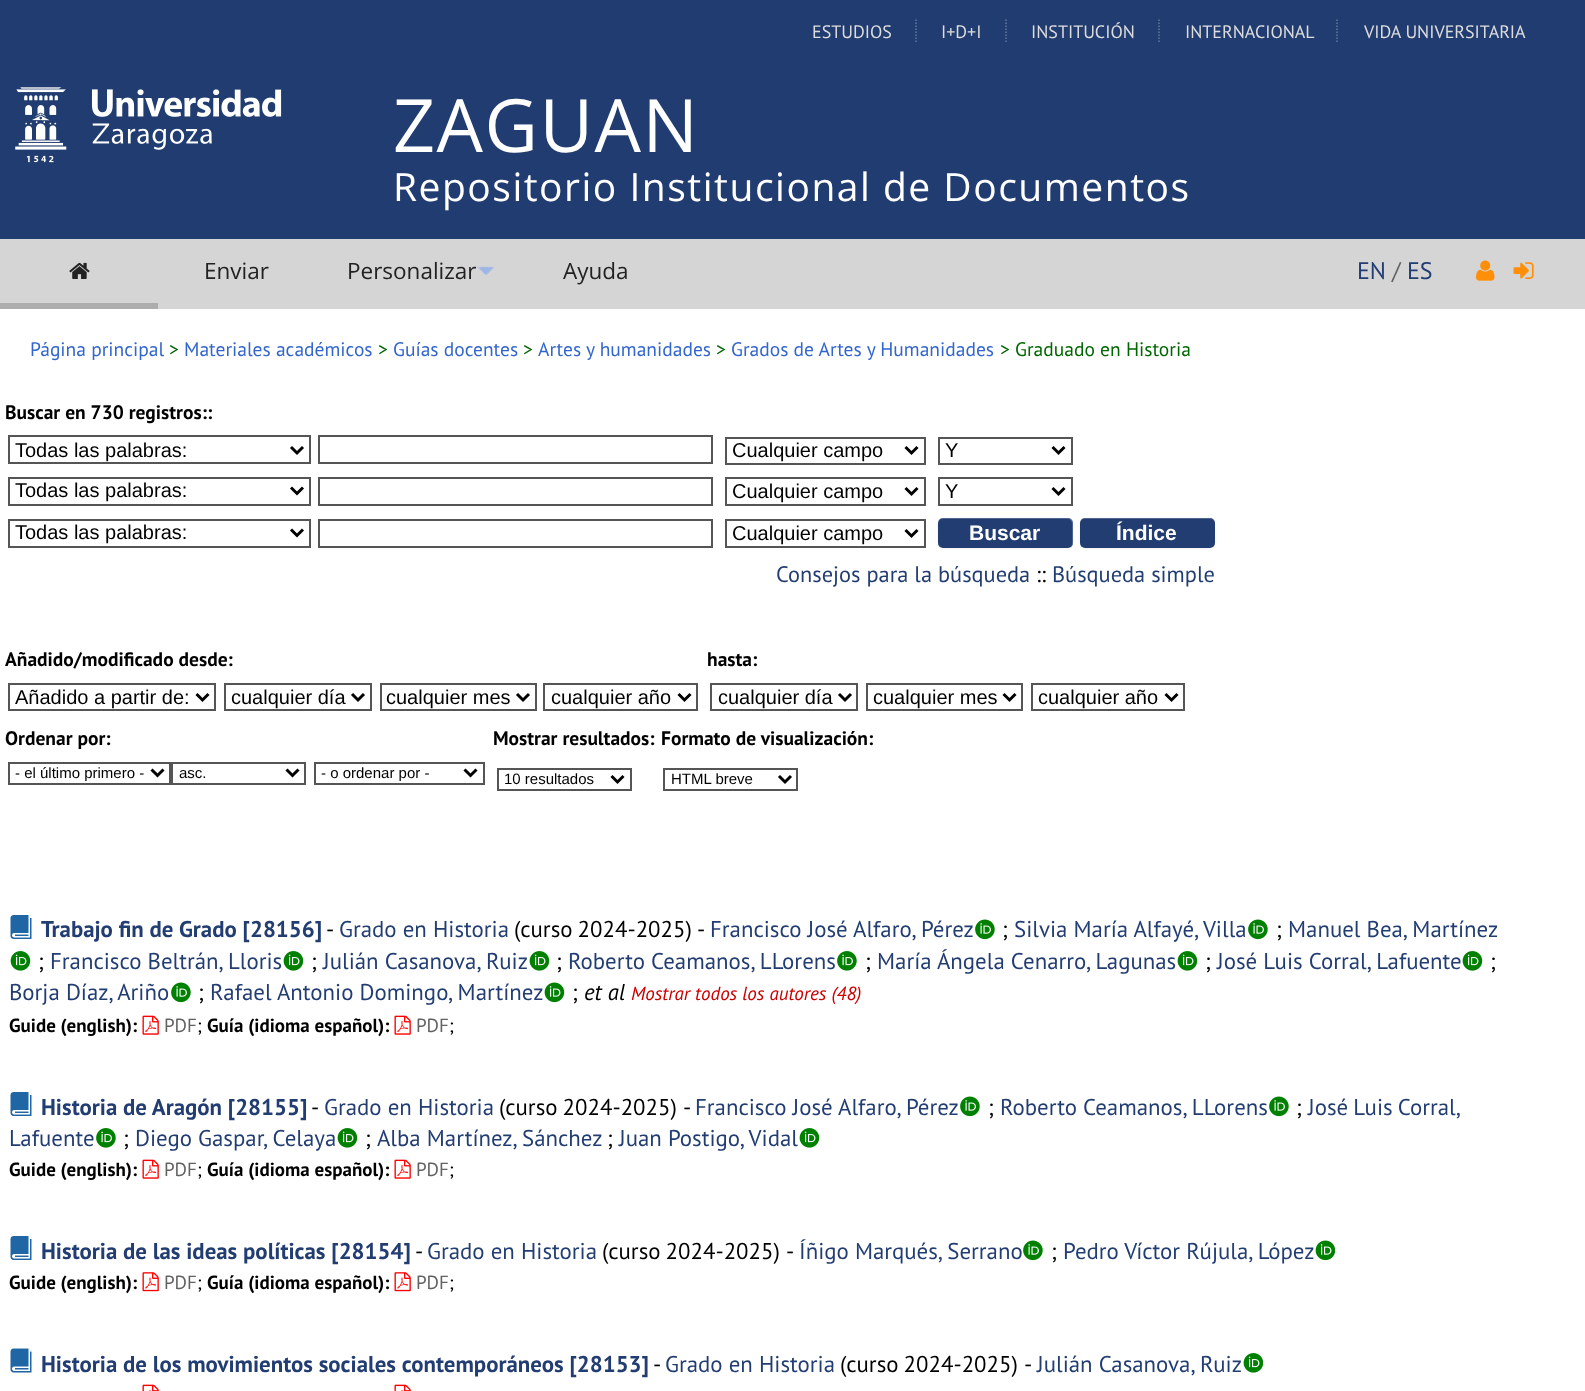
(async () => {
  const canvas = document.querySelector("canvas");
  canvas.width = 1585;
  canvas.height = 1391;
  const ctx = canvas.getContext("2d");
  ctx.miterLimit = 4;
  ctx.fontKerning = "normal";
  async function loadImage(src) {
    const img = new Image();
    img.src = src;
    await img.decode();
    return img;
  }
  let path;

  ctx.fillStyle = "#ffffff";
  ctx.fillRect(0, 0, 1585, 1391);
  ctx.fillStyle = "#213c70";
  ctx.fillRect(0, 0, 1585, 239);
  path = new Path2D("M916 19.5V42");
  ctx.strokeStyle = "#64779d";
  ctx.lineWidth = 1.5;
  ctx.setLineDash([1.5, 1.5]);
  ctx.stroke(path);
  path = new Path2D("M1006 19.5V42");
  ctx.stroke(path);
  path = new Path2D("M1159 19.5V42");
  ctx.stroke(path);
  path = new Path2D("M1337 19.5V42");
  ctx.stroke(path);
  ctx.drawImage(await loadImage("img/1.png"), 15, 87, 267, 76);
  ctx.fillStyle = "#d5d5d5";
  ctx.fillRect(0, 239, 1585, 70);
  ctx.fillStyle = "#adadad";
  ctx.fillRect(0, 303, 158, 6);
  ctx.drawImage(await loadImage("img/2.png"), 69, 262, 21, 17);
  ctx.drawImage(await loadImage("img/3.png"), 478, 266, 16, 9);
  ctx.drawImage(await loadImage("img/4.png"), 1476, 260, 19, 21);
  ctx.drawImage(await loadImage("img/5.png"), 1513, 262, 21, 17);
  ctx.strokeStyle = "#555555";
  ctx.lineWidth = 2;
  ctx.setLineDash([]);
  ctx.strokeRect(9, 436, 301, 27);
  path = new Path2D("M291 447L297 453L303 447");
  ctx.strokeStyle = "#000000";
  ctx.lineWidth = 3;
  ctx.stroke(path);
  ctx.strokeStyle = "#555555";
  ctx.lineWidth = 2;
  ctx.strokeRect(319, 436, 393, 27);
  ctx.strokeRect(726, 438, 199, 26);
  path = new Path2D("M905.5 447L911.5 453L917.5 447");
  ctx.strokeStyle = "#000000";
  ctx.lineWidth = 3;
  ctx.stroke(path);
  ctx.strokeStyle = "#555555";
  ctx.lineWidth = 2;
  ctx.strokeRect(939, 438, 133, 26);
  path = new Path2D("M1052.5 447L1058.5 453L1064.5 447");
  ctx.strokeStyle = "#000000";
  ctx.lineWidth = 3;
  ctx.stroke(path);
  ctx.strokeStyle = "#555555";
  ctx.lineWidth = 2;
  ctx.strokeRect(9, 478, 301, 27);
  path = new Path2D("M291 487.5L297 493.5L303 487.5");
  ctx.strokeStyle = "#000000";
  ctx.lineWidth = 3;
  ctx.stroke(path);
  ctx.strokeStyle = "#555555";
  ctx.lineWidth = 2;
  ctx.strokeRect(319, 478, 393, 27);
  ctx.strokeRect(726, 478, 199, 27);
  path = new Path2D("M905.5 488L911.5 494L917.5 488");
  ctx.strokeStyle = "#000000";
  ctx.lineWidth = 3;
  ctx.stroke(path);
  ctx.strokeStyle = "#555555";
  ctx.lineWidth = 2;
  ctx.strokeRect(939, 478, 133, 27);
  path = new Path2D("M1052.5 488L1058.5 494L1064.5 488");
  ctx.strokeStyle = "#000000";
  ctx.lineWidth = 3;
  ctx.stroke(path);
  ctx.strokeStyle = "#555555";
  ctx.lineWidth = 2;
  ctx.strokeRect(9, 520, 301, 27);
  path = new Path2D("M291 529.5L297 535.5L303 529.5");
  ctx.strokeStyle = "#000000";
  ctx.lineWidth = 3;
  ctx.stroke(path);
  ctx.strokeStyle = "#555555";
  ctx.lineWidth = 2;
  ctx.strokeRect(319, 520, 393, 27);
  ctx.strokeRect(726, 520, 199, 27);
  path = new Path2D("M905.5 530L911.5 536L917.5 530");
  ctx.strokeStyle = "#000000";
  ctx.lineWidth = 3;
  ctx.stroke(path);
  ctx.fillStyle = "rgba(0, 0, 0, 0.05)";
  ctx.filter = "blur(1.5px)";
  ctx.beginPath();
  ctx.roundRect(938, 519, 135, 30, 5);
  ctx.fill();
  ctx.filter = "none";
  ctx.fillStyle = "#223d72";
  ctx.beginPath();
  ctx.roundRect(938, 518, 135, 30, 5);
  ctx.fill();
  ctx.fillStyle = "rgba(255, 255, 255, 0.2)";
  path = new Path2D("M942 519H1068C1070 519 1072 521 1072 524V544L1071 547C1072 546 1073 544 1073 543V523C1073 520 1071 518 1068 518H943C940 518 938 520 938 523V524C938 521 940 519 942 519Z");
  ctx.fill(path);
  ctx.fillStyle = "rgba(0, 0, 0, 0.05)";
  ctx.filter = "blur(1.5px)";
  ctx.beginPath();
  ctx.roundRect(1080, 519, 135, 30, 5);
  ctx.fill();
  ctx.filter = "none";
  ctx.fillStyle = "#223d72";
  ctx.beginPath();
  ctx.roundRect(1080, 518, 135, 30, 5);
  ctx.fill();
  ctx.fillStyle = "rgba(255, 255, 255, 0.2)";
  path = new Path2D("M1084 519H1210C1213 519 1215 521 1215 524C1215 513 1193 518 1189 518H1106C1102 518 1080 513 1080 524C1080 521 1082 519 1084 519Z");
  ctx.fill(path);
  ctx.strokeStyle = "#555555";
  ctx.lineWidth = 2;
  ctx.strokeRect(9, 684, 206, 26);
  path = new Path2D("M196.5 694L202.5 700L208.5 694");
  ctx.strokeStyle = "#000000";
  ctx.lineWidth = 3;
  ctx.stroke(path);
  ctx.strokeStyle = "#555555";
  ctx.lineWidth = 2;
  ctx.strokeRect(225, 684, 146, 26);
  path = new Path2D("M352 694L358 700L364 694");
  ctx.strokeStyle = "#000000";
  ctx.lineWidth = 3;
  ctx.stroke(path);
  ctx.strokeStyle = "#555555";
  ctx.lineWidth = 2;
  ctx.strokeRect(381, 684, 155, 26);
  path = new Path2D("M517 694L523 700L529 694");
  ctx.strokeStyle = "#000000";
  ctx.lineWidth = 3;
  ctx.stroke(path);
  ctx.strokeStyle = "#555555";
  ctx.lineWidth = 2;
  ctx.strokeRect(544, 684, 153, 26);
  path = new Path2D("M678.5 694L684.5 700L690.5 694");
  ctx.strokeStyle = "#000000";
  ctx.lineWidth = 3;
  ctx.stroke(path);
  ctx.strokeStyle = "#555555";
  ctx.lineWidth = 2;
  ctx.strokeRect(711, 684, 146, 26);
  path = new Path2D("M839 694L845 700L851 694");
  ctx.strokeStyle = "#000000";
  ctx.lineWidth = 3;
  ctx.stroke(path);
  ctx.strokeStyle = "#555555";
  ctx.lineWidth = 2;
  ctx.strokeRect(867, 684, 155, 26);
  path = new Path2D("M1003.5 694L1009.5 700L1015.5 694");
  ctx.strokeStyle = "#000000";
  ctx.lineWidth = 3;
  ctx.stroke(path);
  ctx.strokeStyle = "#555555";
  ctx.lineWidth = 2;
  ctx.strokeRect(1032, 684, 152, 26);
  path = new Path2D("M1165.5 694L1171.5 700L1177.5 694");
  ctx.strokeStyle = "#000000";
  ctx.lineWidth = 3;
  ctx.stroke(path);
  ctx.strokeStyle = "#555555";
  ctx.lineWidth = 2;
  ctx.strokeRect(9, 763, 161, 21);
  path = new Path2D("M151.5 769.5L157.5 775.5L163.5 769.5");
  ctx.strokeStyle = "#000000";
  ctx.lineWidth = 3;
  ctx.stroke(path);
  ctx.strokeStyle = "#555555";
  ctx.lineWidth = 2;
  ctx.strokeRect(172, 763, 133, 21);
  path = new Path2D("M286.5 769.5L292.5 775.5L298.5 769.5");
  ctx.strokeStyle = "#000000";
  ctx.lineWidth = 3;
  ctx.stroke(path);
  ctx.strokeStyle = "#555555";
  ctx.lineWidth = 2;
  ctx.strokeRect(315, 763, 169, 21);
  path = new Path2D("M464.5 769.5L470.5 775.5L476.5 769.5");
  ctx.strokeStyle = "#000000";
  ctx.lineWidth = 3;
  ctx.stroke(path);
  ctx.strokeStyle = "#555555";
  ctx.lineWidth = 2;
  ctx.strokeRect(498, 769, 133, 21);
  path = new Path2D("M611.5 776L617.5 782L623.5 776");
  ctx.strokeStyle = "#000000";
  ctx.lineWidth = 3;
  ctx.stroke(path);
  ctx.strokeStyle = "#555555";
  ctx.lineWidth = 2;
  ctx.strokeRect(664, 769, 133, 21);
  path = new Path2D("M779 776L785 782L791 776");
  ctx.strokeStyle = "#000000";
  ctx.lineWidth = 3;
  ctx.stroke(path);
  ctx.drawImage(await loadImage("img/6.png"), 10, 915, 22, 24);
  ctx.drawImage(await loadImage("img/7.png"), 975, 919, 20, 21);
  ctx.drawImage(await loadImage("img/7.png"), 1248, 919, 20, 21);
  ctx.drawImage(await loadImage("img/8.png"), 10, 951, 21, 20);
  ctx.drawImage(await loadImage("img/8.png"), 283, 951, 21, 20);
  ctx.drawImage(await loadImage("img/8.png"), 529, 951, 21, 20);
  ctx.drawImage(await loadImage("img/9.png"), 837, 951, 20, 20);
  ctx.drawImage(await loadImage("img/8.png"), 1177, 951, 21, 20);
  ctx.drawImage(await loadImage("img/8.png"), 1462, 951, 21, 20);
  ctx.drawImage(await loadImage("img/7.png"), 171, 982, 20, 21);
  ctx.drawImage(await loadImage("img/10.png"), 544, 982, 21, 21);
  ctx.drawImage(await loadImage("img/11.png"), 142, 1015, 17, 20);
  ctx.drawImage(await loadImage("img/11.png"), 394, 1015, 17, 20);
  ctx.drawImage(await loadImage("img/6.png"), 10, 1092, 22, 24);
  ctx.drawImage(await loadImage("img/7.png"), 960, 1096, 20, 21);
  ctx.drawImage(await loadImage("img/7.png"), 1269, 1096, 20, 21);
  ctx.drawImage(await loadImage("img/9.png"), 96, 1128, 20, 20);
  ctx.drawImage(await loadImage("img/8.png"), 337, 1128, 21, 20);
  ctx.drawImage(await loadImage("img/8.png"), 799, 1128, 21, 20);
  ctx.drawImage(await loadImage("img/11.png"), 142, 1159, 17, 20);
  ctx.drawImage(await loadImage("img/11.png"), 394, 1159, 17, 20);
  ctx.drawImage(await loadImage("img/6.png"), 10, 1236, 22, 24);
  ctx.drawImage(await loadImage("img/7.png"), 1023, 1240, 20, 21);
  ctx.drawImage(await loadImage("img/10.png"), 1315, 1240, 21, 21);
  ctx.drawImage(await loadImage("img/12.png"), 142, 1272, 17, 20);
  ctx.drawImage(await loadImage("img/12.png"), 394, 1272, 17, 20);
  ctx.drawImage(await loadImage("img/13.png"), 10, 1348, 22, 25);
  ctx.drawImage(await loadImage("img/8.png"), 1243, 1353, 21, 20);
  ctx.drawImage(await loadImage("img/14.png"), 142, 1384, 17, 7);
  ctx.drawImage(await loadImage("img/14.png"), 394, 1384, 17, 7);
  ctx.font = "18px PT Sans";
  ctx.fillStyle = "#dddddd";
  for (const [text, x, y] of [
    ["ESTUDIOS", 812, 38],
    ["I+D+I", 941, 38],
    ["INSTITUCIÓN", 1031, 38],
    ["INTERNACIONAL", 1185, 38],
    ["VIDA UNIVERSITARIA", 1364, 38],
  ]) {
    ctx.fillText(text, x, y);
  }
  ctx.letterSpacing = "1.5px";
  ctx.font = "73.5px Open Sans";
  ctx.fillStyle = "#ffffff";
  ctx.fillText("ZAGUAN", 393, 152);
  ctx.font = "39px Open Sans";
  ctx.fillText("Repositorio Institucional de Documentos", 393, 201);
  ctx.letterSpacing = "0px";
  ctx.font = "22.5px Open Sans";
  ctx.fillStyle = "#222222";
  for (const [text, x, y] of [
    ["Enviar", 204, 279],
    ["Personalizar", 347, 279],
    ["Ayuda", 563, 279],
  ]) {
    ctx.fillText(text, x, y);
  }
  ctx.font = "24px PT Sans";
  ctx.fillStyle = "#223d72";
  ctx.fillText("EN", 1357, 279);
  ctx.fillStyle = "#626262";
  ctx.fillText("/", 1392, 279);
  ctx.fillStyle = "#223d72";
  ctx.fillText("ES", 1407, 279);
  ctx.font = "19.5px PT Sans";
  ctx.fillStyle = "#3366cc";
  ctx.fillText("Página principal", 30, 356);
  ctx.fillStyle = "#006600";
  ctx.fillText(">", 169, 356);
  ctx.fillStyle = "#3366cc";
  ctx.fillText("Materiales académicos", 184, 356);
  ctx.fillStyle = "#006600";
  ctx.fillText(">", 378, 356);
  ctx.fillStyle = "#3366cc";
  ctx.fillText("Guías docentes", 393, 356);
  ctx.fillStyle = "#006600";
  ctx.fillText(">", 523, 356);
  ctx.fillStyle = "#3366cc";
  ctx.fillText("Artes y humanidades", 538, 356);
  ctx.fillStyle = "#006600";
  ctx.fillText(">", 716, 356);
  ctx.fillStyle = "#3366cc";
  ctx.fillText("Grados de Artes y Humanidades", 731, 356);
  ctx.fillStyle = "#006600";
  ctx.fillText("> Graduado en Historia", 1000, 356);
  ctx.font = "bold 19.5px PT Sans";
  ctx.fillStyle = "#000000";
  ctx.fillText("Buscar en 730 registros::", 5, 419);
  ctx.font = "20px Liberation Sans";
  for (const [text, x, y] of [
    ["Todas las palabras:", 15, 457],
    ["Cualquier campo", 732, 457],
    ["Y", 945, 457],
    ["Todas las palabras:", 15, 497],
    ["Cualquier campo", 732, 498],
    ["Y", 945, 498],
    ["Todas las palabras:", 15, 539],
    ["Cualquier campo", 732, 540],
  ]) {
    ctx.fillText(text, x, y);
  }
  ctx.font = "bold 21px Liberation Sans";
  ctx.fillStyle = "#ffffff";
  ctx.fillText("Buscar", 969, 540);
  ctx.fillText("Índice", 1116, 540);
  ctx.font = "22.4px PT Sans";
  ctx.fillStyle = "#223d72";
  ctx.fillText("Consejos para la búsqueda", 776, 582);
  ctx.fillStyle = "#000000";
  ctx.fillText("::", 1036, 582);
  ctx.fillStyle = "#223d72";
  ctx.fillText("Búsqueda simple", 1052, 582);
  ctx.font = "bold 19.5px PT Sans";
  ctx.fillStyle = "#000000";
  ctx.fillText("Añadido/modificado desde:", 5, 666);
  ctx.fillText("hasta:", 707, 666);
  ctx.font = "20px Liberation Sans";
  for (const [text, x, y] of [
    ["Añadido a partir de:", 15, 704],
    ["cualquier día", 231, 704],
    ["cualquier mes", 386, 704],
    ["cualquier año", 551, 704],
    ["cualquier día", 718, 704],
    ["cualquier mes", 873, 704],
    ["cualquier año", 1038, 704],
  ]) {
    ctx.fillText(text, x, y);
  }
  ctx.font = "bold 19.5px PT Sans";
  for (const [text, x, y] of [
    ["Ordenar por:", 5, 745],
    ["Mostrar resultados:", 493, 745],
    ["Formato de visualización:", 661, 745],
  ]) {
    ctx.fillText(text, x, y);
  }
  ctx.font = "15px Liberation Sans";
  for (const [text, x, y] of [
    ["- el último primero -", 15, 778],
    ["asc.", 179, 778],
    ["- o ordenar por -", 321, 778],
    ["10 resultados", 504, 784],
    ["HTML breve", 671, 784],
  ]) {
    ctx.fillText(text, x, y);
  }
  ctx.font = "bold 22.85px PT Sans";
  ctx.fillStyle = "#223d72";
  ctx.fillText("Trabajo fin de Grado [28156]", 41, 937);
  ctx.font = "22.85px PT Sans";
  ctx.fillStyle = "#000000";
  ctx.fillText("-", 326, 937);
  ctx.fillStyle = "#223d72";
  ctx.fillText("Grado en Historia", 339, 937);
  ctx.wordSpacing = "-1px";
  ctx.fillStyle = "#000000";
  ctx.fillText("(curso 2024-2025)", 514, 937);
  ctx.wordSpacing = "0px";
  ctx.fillText("-", 697, 937);
  ctx.fillStyle = "#223d72";
  ctx.fillText("Francisco José Alfaro, Pérez", 710, 937);
  ctx.fillStyle = "#000000";
  ctx.fillText(";", 1002, 937);
  ctx.fillStyle = "#223d72";
  ctx.fillText("Silvia María Alfayé, Villa", 1014, 937);
  ctx.fillStyle = "#000000";
  ctx.fillText(";", 1276, 937);
  ctx.fillStyle = "#223d72";
  ctx.fillText("Manuel Bea, Martínez", 1288, 937);
  ctx.fillStyle = "#000000";
  ctx.fillText(";", 38, 969);
  ctx.fillStyle = "#223d72";
  ctx.fillText("Francisco Beltrán, Lloris", 50, 969);
  ctx.fillStyle = "#000000";
  ctx.fillText(";", 311, 969);
  ctx.fillStyle = "#223d72";
  ctx.fillText("Julián Casanova, Ruiz", 323, 969);
  ctx.fillStyle = "#000000";
  ctx.fillText(";", 556, 969);
  ctx.fillStyle = "#223d72";
  ctx.fillText("Roberto Ceamanos, LLorens", 568, 969);
  ctx.fillStyle = "#000000";
  ctx.fillText(";", 865, 969);
  ctx.fillStyle = "#223d72";
  ctx.fillText("María Ángela Cenarro, Lagunas", 877, 969);
  ctx.fillStyle = "#000000";
  ctx.fillText(";", 1205, 969);
  ctx.fillStyle = "#223d72";
  ctx.fillText("José Luis Corral, Lafuente", 1217, 969);
  ctx.fillStyle = "#000000";
  ctx.fillText(";", 1490, 969);
  ctx.fillStyle = "#223d72";
  ctx.fillText("Borja Díaz, Ariño", 9, 1000);
  ctx.fillStyle = "#000000";
  ctx.fillText(";", 198, 1000);
  ctx.fillStyle = "#223d72";
  ctx.fillText("Rafael Antonio Domingo, Martínez", 210, 1000);
  ctx.fillStyle = "#000000";
  ctx.fillText(";", 572, 1000);
  ctx.font = "italic 22.85px PT Sans";
  ctx.fillText("et al", 584, 1000);
  ctx.font = "italic 19px PT Sans";
  ctx.fillStyle = "#cc0000";
  ctx.fillText("Mostrar todos los autores (48)", 631, 1000);
  ctx.font = "bold 19px PT Sans";
  ctx.fillStyle = "#000000";
  ctx.fillText("Guide (english):", 9, 1032);
  ctx.font = "19px PT Sans";
  ctx.fillStyle = "#626262";
  ctx.fillText("PDF", 164, 1032);
  ctx.fillStyle = "#000000";
  ctx.fillText(";", 197, 1032);
  ctx.font = "bold 19px PT Sans";
  ctx.fillText("Guía (idioma español):", 207, 1032);
  ctx.font = "19px PT Sans";
  ctx.fillStyle = "#626262";
  ctx.fillText("PDF", 416, 1032);
  ctx.fillStyle = "#000000";
  ctx.fillText(";", 449, 1032);
  ctx.font = "bold 22.85px PT Sans";
  ctx.fillStyle = "#223d72";
  ctx.fillText("Historia de Aragón [28155]", 41, 1115);
  ctx.font = "22.85px PT Sans";
  ctx.fillStyle = "#000000";
  ctx.fillText("-", 311, 1115);
  ctx.fillStyle = "#223d72";
  ctx.fillText("Grado en Historia", 324, 1115);
  ctx.wordSpacing = "-1px";
  ctx.fillStyle = "#000000";
  ctx.fillText("(curso 2024-2025)", 499, 1115);
  ctx.wordSpacing = "0px";
  ctx.fillText("-", 683, 1115);
  ctx.fillStyle = "#223d72";
  ctx.fillText("Francisco José Alfaro, Pérez", 695, 1115);
  ctx.fillStyle = "#000000";
  ctx.fillText(";", 988, 1115);
  ctx.fillStyle = "#223d72";
  ctx.fillText("Roberto Ceamanos, LLorens", 1000, 1115);
  ctx.fillStyle = "#000000";
  ctx.fillText(";", 1296, 1115);
  ctx.wordSpacing = "-1px";
  ctx.fillStyle = "#223d72";
  ctx.fillText("José Luis Corral,", 1308, 1115);
  ctx.wordSpacing = "0px";
  ctx.fillText("Lafuente", 9, 1146);
  ctx.fillStyle = "#000000";
  ctx.fillText(";", 123, 1146);
  ctx.fillStyle = "#223d72";
  ctx.fillText("Diego Gaspar, Celaya", 135, 1146);
  ctx.fillStyle = "#000000";
  ctx.fillText(";", 365, 1146);
  ctx.fillStyle = "#223d72";
  ctx.fillText("Alba Martínez, Sánchez", 377, 1146);
  ctx.fillStyle = "#000000";
  ctx.fillText(";", 607, 1146);
  ctx.fillStyle = "#223d72";
  ctx.fillText("Juan Postigo, Vidal", 619, 1146);
  ctx.font = "bold 19px PT Sans";
  ctx.fillStyle = "#000000";
  ctx.fillText("Guide (english):", 9, 1176);
  ctx.font = "19px PT Sans";
  ctx.fillStyle = "#626262";
  ctx.fillText("PDF", 164, 1176);
  ctx.fillStyle = "#000000";
  ctx.fillText(";", 197, 1176);
  ctx.font = "bold 19px PT Sans";
  ctx.fillText("Guía (idioma español):", 207, 1176);
  ctx.font = "19px PT Sans";
  ctx.fillStyle = "#626262";
  ctx.fillText("PDF", 416, 1176);
  ctx.fillStyle = "#000000";
  ctx.fillText(";", 449, 1176);
  ctx.font = "bold 22.85px PT Sans";
  ctx.fillStyle = "#223d72";
  ctx.fillText("Historia de las ideas políticas [28154]", 41, 1259);
  ctx.font = "22.85px PT Sans";
  ctx.fillStyle = "#000000";
  ctx.fillText("-", 415, 1259);
  ctx.fillStyle = "#223d72";
  ctx.fillText("Grado en Historia", 427, 1259);
  ctx.wordSpacing = "-1px";
  ctx.fillStyle = "#000000";
  ctx.fillText("(curso 2024-2025)", 602, 1259);
  ctx.wordSpacing = "0px";
  ctx.fillText("-", 786, 1259);
  ctx.fillStyle = "#223d72";
  ctx.fillText("Íñigo Marqués, Serrano", 799, 1259);
  ctx.fillStyle = "#000000";
  ctx.fillText(";", 1051, 1259);
  ctx.fillStyle = "#223d72";
  ctx.fillText("Pedro Víctor Rújula, López", 1063, 1259);
  ctx.font = "bold 19px PT Sans";
  ctx.fillStyle = "#000000";
  ctx.fillText("Guide (english):", 9, 1289);
  ctx.font = "19px PT Sans";
  ctx.fillStyle = "#626262";
  ctx.fillText("PDF", 164, 1289);
  ctx.fillStyle = "#000000";
  ctx.fillText(";", 197, 1289);
  ctx.font = "bold 19px PT Sans";
  ctx.fillText("Guía (idioma español):", 207, 1289);
  ctx.font = "19px PT Sans";
  ctx.fillStyle = "#626262";
  ctx.fillText("PDF", 416, 1289);
  ctx.fillStyle = "#000000";
  ctx.fillText(";", 449, 1289);
  ctx.font = "bold 22.85px PT Sans";
  ctx.fillStyle = "#223d72";
  ctx.fillText("Historia de los movimientos sociales contemporáneos [28153]", 41, 1372);
  ctx.font = "22.85px PT Sans";
  ctx.fillStyle = "#000000";
  ctx.fillText("-", 653, 1372);
  ctx.fillStyle = "#223d72";
  ctx.fillText("Grado en Historia", 665, 1372);
  ctx.wordSpacing = "-1px";
  ctx.fillStyle = "#000000";
  ctx.fillText("(curso 2024-2025)", 840, 1372);
  ctx.wordSpacing = "0px";
  ctx.fillText("-", 1024, 1372);
  ctx.fillStyle = "#223d72";
  ctx.fillText("Julián Casanova, Ruiz", 1037, 1372);
})();
